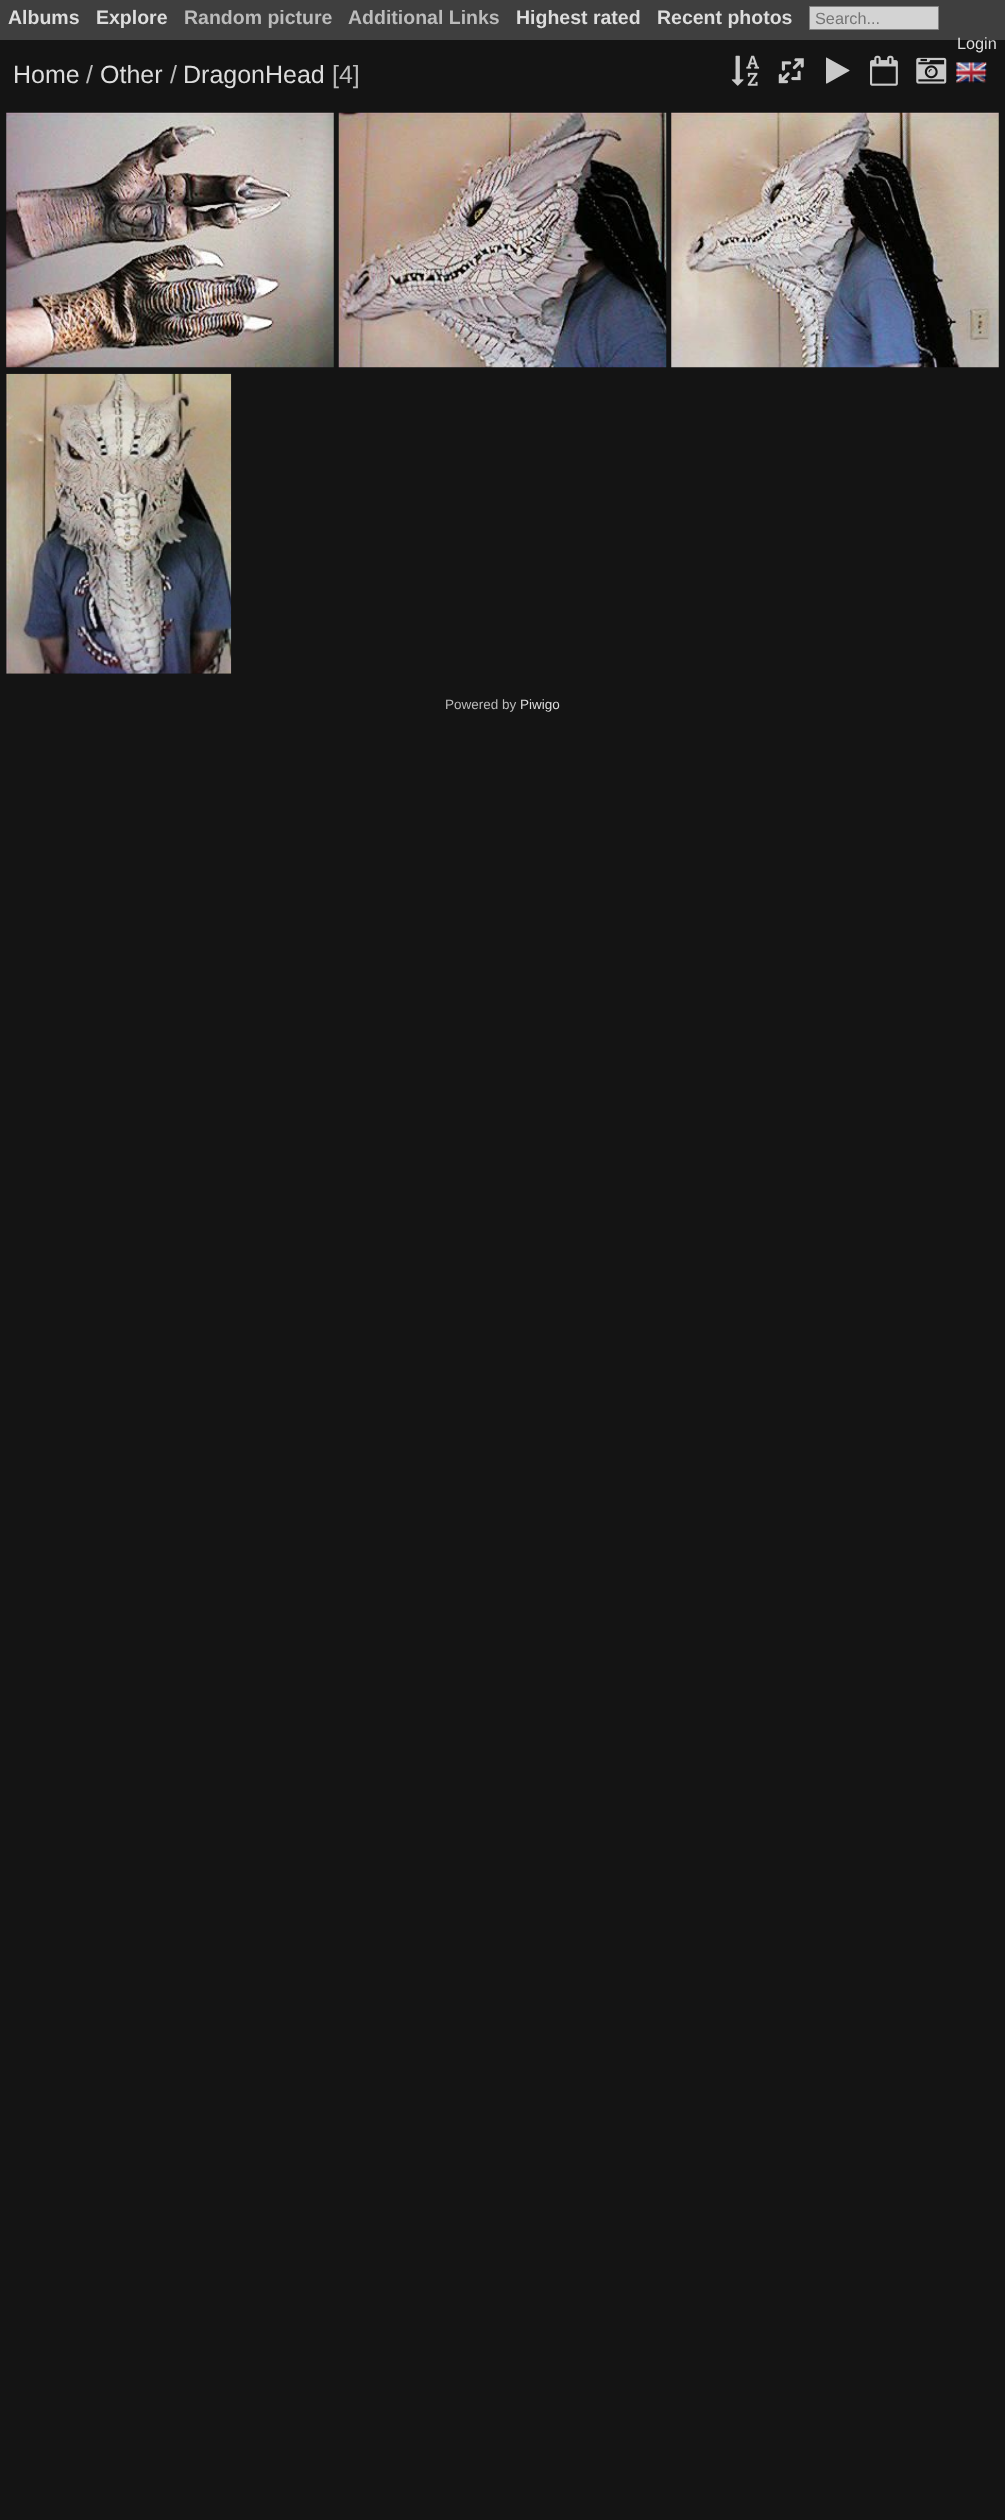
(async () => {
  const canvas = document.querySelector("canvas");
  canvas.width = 1005;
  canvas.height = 2520;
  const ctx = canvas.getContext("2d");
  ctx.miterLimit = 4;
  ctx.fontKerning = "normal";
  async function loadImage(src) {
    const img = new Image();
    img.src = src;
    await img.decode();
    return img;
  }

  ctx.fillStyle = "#141414";
  ctx.fillRect(0, 0, 1005, 2520);
  ctx.fillStyle = "#3f3f3f";
  ctx.fillRect(0, 0, 1005, 40);
  ctx.fillStyle = "#d3d3d3";
  ctx.beginPath();
  ctx.rect(809.5, 6.5, 129, 23);
  ctx.fill();
  ctx.strokeStyle = "#808080";
  ctx.stroke();
  ctx.drawImage(await loadImage("img/1.png"), 731, 55, 29, 31);
  ctx.drawImage(await loadImage("img/2.png"), 778, 58, 26, 26);
  ctx.drawImage(await loadImage("img/3.png"), 870, 55, 28, 31);
  ctx.drawImage(await loadImage("img/4.png"), 916, 57, 31, 27);
  ctx.drawImage(await loadImage("img/5.png"), 956, 62, 31, 21);
  ctx.drawImage(await loadImage("img/6.png"), 6, 112, 328, 256);
  ctx.drawImage(await loadImage("img/7.png"), 338, 112, 329, 256);
  ctx.drawImage(await loadImage("img/8.png"), 671, 112, 328, 256);
  ctx.drawImage(await loadImage("img/9.png"), 6, 373, 226, 301);
  ctx.font = "bold 19.5px Liberation Sans";
  ctx.fillStyle = "#dddddd";
  ctx.fillText("Albums", 8, 24);
  ctx.fillText("Explore", 96, 24);
  ctx.fillStyle = "#bbbbbb";
  ctx.fillText("Random picture", 184, 24);
  ctx.fillText("Additional Links", 348, 24);
  ctx.fillStyle = "#dddddd";
  ctx.fillText("Highest rated", 516, 24);
  ctx.fillText("Recent photos", 657, 24);
  ctx.font = "16.25px Liberation Sans";
  ctx.fillStyle = "#757575";
  ctx.fillText("Search...", 815, 24);
  ctx.fillStyle = "#dddddd";
  ctx.fillText("Login", 957, 49);
  ctx.font = "25px Liberation Sans";
  ctx.fillText("Home", 13, 83);
  ctx.fillStyle = "#bbbbbb";
  ctx.fillText("/", 86, 83);
  ctx.fillStyle = "#dddddd";
  ctx.fillText("Other", 100, 83);
  ctx.fillStyle = "#bbbbbb";
  ctx.fillText("/", 170, 83);
  ctx.fillStyle = "#dddddd";
  ctx.fillText("DragonHead", 183, 83);
  ctx.fillStyle = "#bbbbbb";
  ctx.fillText("[4]", 332, 83);
  ctx.font = "30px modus";
  ctx.fillStyle = "#c9c9c9";
  ctx.fillText("▶", 826, 81);
  ctx.font = "13.5px Liberation Sans";
  ctx.fillStyle = "#bbbbbb";
  ctx.fillText("Powered by", 445, 709);
  ctx.fillStyle = "#dddddd";
  ctx.fillText("Piwigo", 520, 709);
})();
